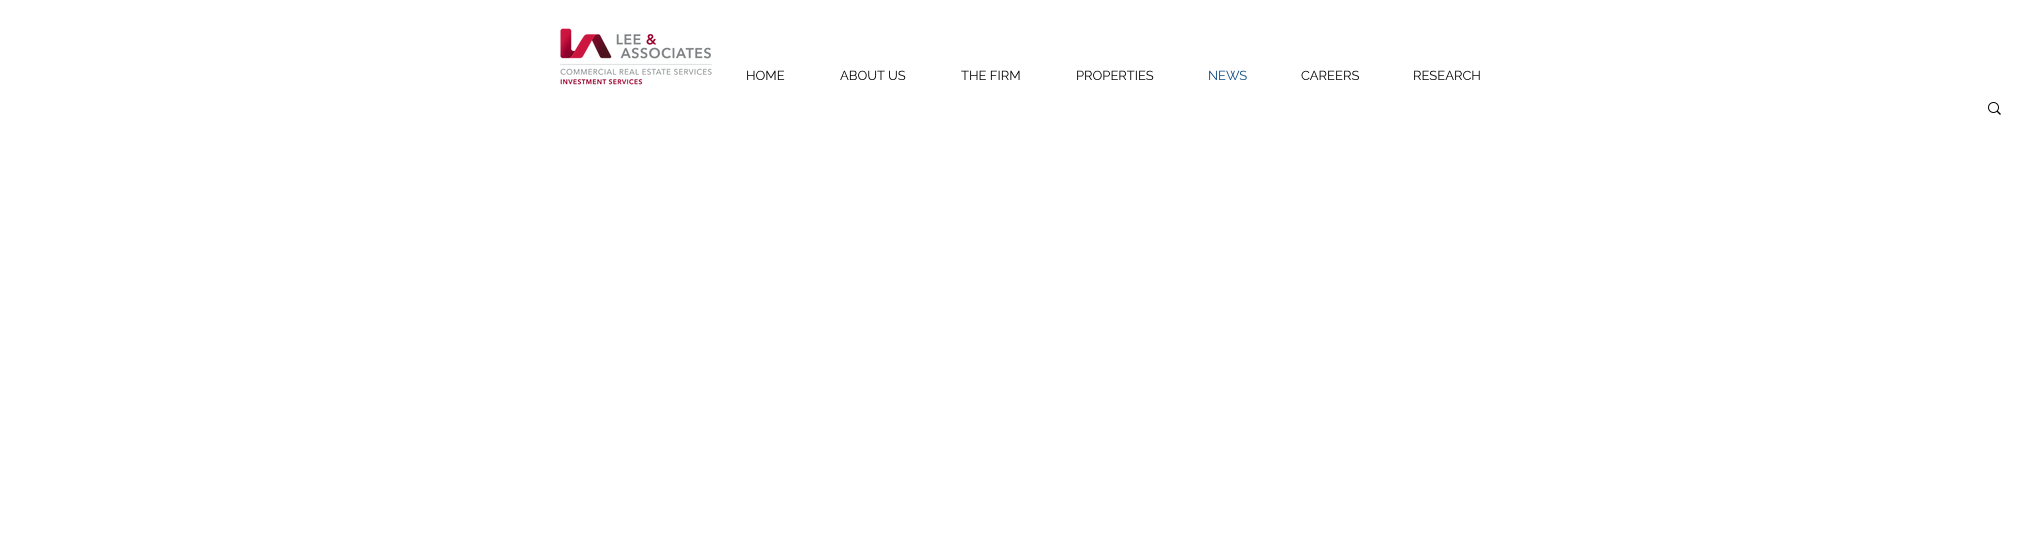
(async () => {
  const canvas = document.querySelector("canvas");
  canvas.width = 2040;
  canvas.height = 534;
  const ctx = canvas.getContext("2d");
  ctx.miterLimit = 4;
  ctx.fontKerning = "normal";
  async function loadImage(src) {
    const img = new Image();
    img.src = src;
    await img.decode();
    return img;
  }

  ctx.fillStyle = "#ffffff";
  ctx.fillRect(0, 0, 2040, 534);
  ctx.drawImage(await loadImage("img/1.png"), 560, 28, 152, 57);
  ctx.drawImage(await loadImage("img/2.png"), 1988, 102, 13, 13);
  ctx.font = "13px Raleway";
  ctx.fillStyle = "#000000";
  for (const [text, x, y] of [
    ["HOME", 746, 80],
    ["ABOUT US", 840, 80],
    ["THE FIRM", 961, 80],
    ["PROPERTIES", 1076, 80],
  ]) {
    ctx.fillText(text, x, y);
  }
  ctx.fillStyle = "#0f4c85";
  ctx.fillText("NEWS", 1208, 80);
  ctx.fillStyle = "#000000";
  ctx.fillText("CAREERS", 1301, 80);
  ctx.fillText("RESEARCH", 1413, 80);
})();
